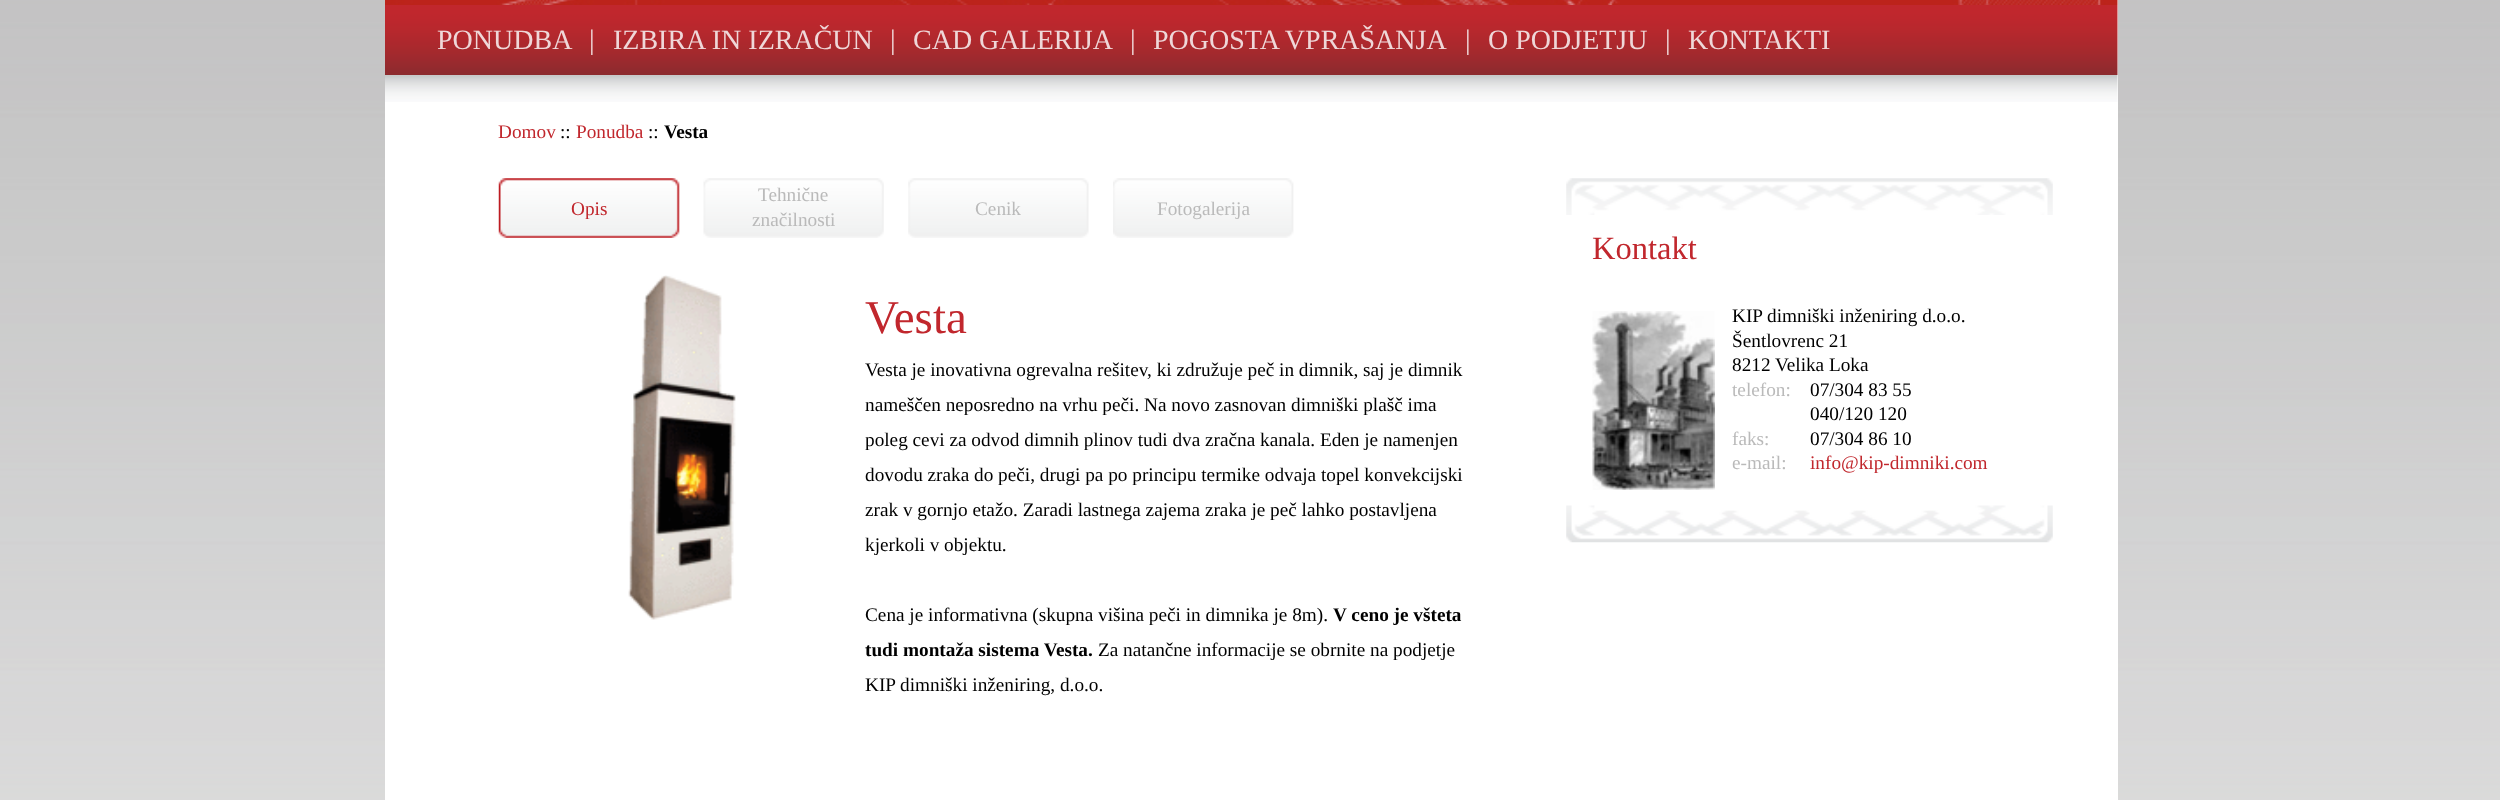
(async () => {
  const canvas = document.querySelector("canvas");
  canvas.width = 2500;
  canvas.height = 800;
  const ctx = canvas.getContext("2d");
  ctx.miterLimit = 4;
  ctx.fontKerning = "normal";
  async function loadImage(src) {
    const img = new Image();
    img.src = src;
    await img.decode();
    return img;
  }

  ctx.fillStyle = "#ffffff";
  ctx.fillRect(0, 0, 2500, 800);
  ctx.drawImage(await loadImage("img/1.png"), 0, 0, 2500, 800);
  ctx.fillRect(385, 0, 1733, 800);
  ctx.drawImage(await loadImage("img/2.png"), 385, 0, 1733, 5);
  ctx.drawImage(await loadImage("img/3.png"), 385, 5, 1733, 70);
  ctx.drawImage(await loadImage("img/4.png"), 385, 75, 1733, 27);
  ctx.drawImage(await loadImage("img/5.png"), 498, 178, 182, 60);
  ctx.drawImage(await loadImage("img/6.png"), 703, 178, 181, 60);
  ctx.drawImage(await loadImage("img/7.png"), 908, 178, 181, 60);
  ctx.drawImage(await loadImage("img/8.png"), 1113, 178, 181, 60);
  ctx.drawImage(await loadImage("img/9.png"), 628, 275, 108, 345);
  ctx.drawImage(await loadImage("img/10.png"), 1566, 178, 487, 37);
  ctx.drawImage(await loadImage("img/11.png"), 1592, 311, 123, 179);
  ctx.drawImage(await loadImage("img/12.png"), 1566, 505, 487, 38);
  ctx.font = "28px Liberation Serif";
  ctx.fillStyle = "#efd7d8";
  for (const [text, x, y] of [
    ["PONUDBA", 437, 49],
    ["|", 589, 49],
    ["IZBIRA IN IZRAČUN", 613, 49],
    ["|", 890, 49],
    ["CAD GALERIJA", 913, 49],
    ["|", 1130, 49],
    ["POGOSTA VPRAŠANJA", 1153, 49],
    ["|", 1465, 49],
    ["O PODJETJU", 1488, 49],
    ["|", 1665, 49],
    ["KONTAKTI", 1688, 49],
  ]) {
    ctx.fillText(text, x, y);
  }
  ctx.font = "19.25px Liberation Serif";
  ctx.fillStyle = "#c1272d";
  ctx.fillText("Domov", 498, 138);
  ctx.fillStyle = "#000000";
  ctx.fillText("::", 560, 138);
  ctx.fillStyle = "#c1272d";
  ctx.fillText("Ponudba", 576, 138);
  ctx.fillStyle = "#000000";
  ctx.fillText("::", 648, 138);
  ctx.font = "bold 19.25px Liberation Serif";
  ctx.fillText("Vesta", 664, 138);
  ctx.font = "19.25px Liberation Serif";
  ctx.fillStyle = "#c1272d";
  ctx.fillText("Opis", 571, 215);
  ctx.fillStyle = "#bababa";
  for (const [text, x, y] of [
    ["Tehnične", 758, 201],
    ["značilnosti", 752, 226],
    ["Cenik", 975, 215],
    ["Fotogalerija", 1157, 215],
  ]) {
    ctx.fillText(text, x, y);
  }
  ctx.font = "47px Liberation Serif";
  ctx.fillStyle = "#c1272d";
  ctx.fillText("Vesta", 865, 333);
  ctx.font = "19.25px Liberation Serif";
  ctx.fillStyle = "#000000";
  for (const [text, x, y] of [
    ["Vesta je inovativna ogrevalna rešitev, ki združuje peč in dimnik, saj je dimnik", 865, 376],
    ["nameščen neposredno na vrhu peči. Na novo zasnovan dimniški plašč ima", 865, 411],
    ["poleg cevi za odvod dimnih plinov tudi dva zračna kanala. Eden je namenjen", 865, 446],
    ["dovodu zraka do peči, drugi pa po principu termike odvaja topel konvekcijski", 865, 481],
    ["zrak v gornjo etažo. Zaradi lastnega zajema zraka je peč lahko postavljena", 865, 516],
    ["kjerkoli v objektu.", 865, 551],
    ["Cena je informativna (skupna višina peči in dimnika je 8m).", 865, 621],
  ]) {
    ctx.fillText(text, x, y);
  }
  ctx.font = "bold 19.25px Liberation Serif";
  ctx.fillText("V ceno je všteta", 1333, 621);
  ctx.fillText("tudi montaža sistema Vesta.", 865, 656);
  ctx.font = "19.25px Liberation Serif";
  ctx.fillText("Za natančne informacije se obrnite na podjetje", 1098, 656);
  ctx.fillText("KIP dimniški inženiring, d.o.o.", 865, 691);
  ctx.font = "32.5px Liberation Serif";
  ctx.fillStyle = "#c1272d";
  ctx.fillText("Kontakt", 1592, 259);
  ctx.font = "19.25px Liberation Serif";
  ctx.fillStyle = "#000000";
  for (const [text, x, y] of [
    ["KIP dimniški inženiring d.o.o.", 1732, 322],
    ["Šentlovrenc 21", 1732, 347],
    ["8212 Velika Loka", 1732, 371],
  ]) {
    ctx.fillText(text, x, y);
  }
  ctx.fillStyle = "#bababa";
  ctx.fillText("telefon:", 1732, 396);
  ctx.fillStyle = "#000000";
  ctx.fillText("07/304 83 55", 1810, 396);
  ctx.fillText("040/120 120", 1810, 420);
  ctx.fillStyle = "#bababa";
  ctx.fillText("faks:", 1732, 445);
  ctx.fillStyle = "#000000";
  ctx.fillText("07/304 86 10", 1810, 445);
  ctx.fillStyle = "#bababa";
  ctx.fillText("e-mail:", 1732, 469);
  ctx.fillStyle = "#c1272d";
  ctx.fillText("info@kip-dimniki.com", 1810, 469);
})();
